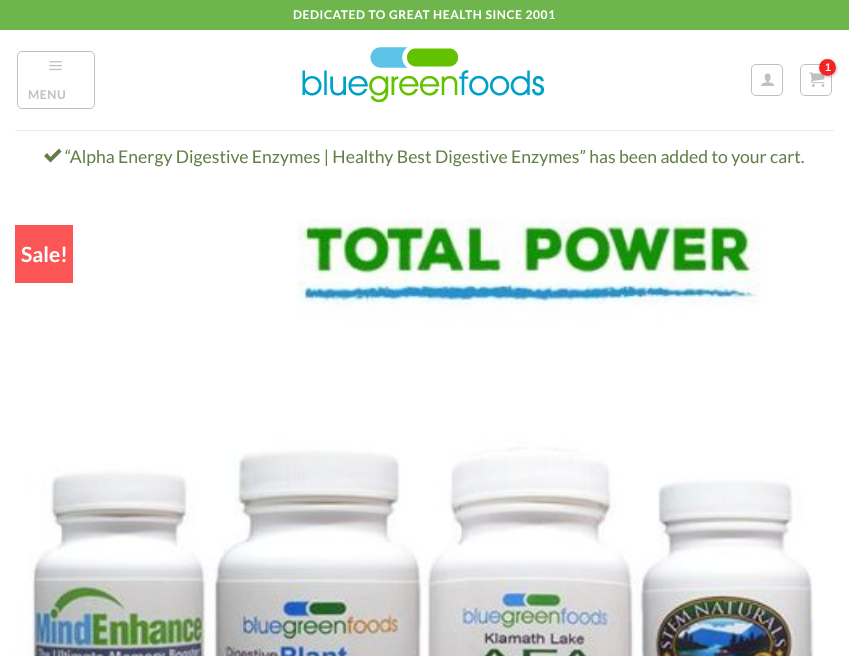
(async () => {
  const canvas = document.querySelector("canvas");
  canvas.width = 849;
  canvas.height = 656;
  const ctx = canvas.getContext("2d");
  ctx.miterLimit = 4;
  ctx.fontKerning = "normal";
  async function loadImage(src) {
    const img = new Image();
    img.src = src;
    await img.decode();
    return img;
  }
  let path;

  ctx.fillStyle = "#ffffff";
  ctx.fillRect(0, 0, 849, 656);
  ctx.fillStyle = "#6eb54d";
  ctx.fillRect(0, 0, 849, 30);
  ctx.drawImage(await loadImage("img/1.png"), 302, 47, 242, 56);
  ctx.beginPath();
  ctx.roundRect(751.5, 64.5, 31, 31, 4.5);
  ctx.strokeStyle = "#c0c0c0";
  ctx.stroke();
  ctx.drawImage(await loadImage("img/2.png"), 761, 73, 14, 13);
  ctx.beginPath();
  ctx.roundRect(800.5, 64.5, 31, 31, 4.5);
  ctx.stroke();
  ctx.drawImage(await loadImage("img/3.png"), 809, 72, 16, 15);
  ctx.save();
  path = new Path2D("M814 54H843V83H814ZM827.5 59C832 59 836 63 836 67.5C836 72 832 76 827.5 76C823 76 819 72 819 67.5C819 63 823 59 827.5 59Z");
  ctx.clip(path, "evenodd");
  ctx.fillStyle = "rgba(0, 0, 0, 0.27)";
  ctx.filter = "blur(1.5px)";
  ctx.beginPath();
  ctx.roundRect(820, 60, 17, 17, 8.5);
  ctx.fill();
  ctx.filter = "none";
  ctx.restore();
  ctx.fillStyle = "rgba(242, 12, 12, 0.9)";
  ctx.beginPath();
  ctx.arc(827.5, 67.5, 8.5, 0, Math.PI * 2);
  ctx.fill();
  ctx.beginPath();
  ctx.roundRect(17.5, 51.5, 77, 57, 4.5);
  ctx.stroke();
  ctx.drawImage(await loadImage("img/4.png"), 49, 61, 13, 10);
  ctx.fillStyle = "#ebebeb";
  ctx.fillRect(15, 130, 819, 1);
  ctx.fillStyle = "#627d47";
  path = new Path2D("M59 148.5L50.5 157L47 153L44 156L50.5 162.5L61.5 151.5Z");
  ctx.fill(path);
  ctx.drawImage(await loadImage("img/5.png"), 15, 218, 799, 438);
  ctx.fillStyle = "#fb5555";
  ctx.fillRect(15, 225, 58, 58);
  ctx.letterSpacing = "0.6px";
  ctx.font = "bold 12px Lato";
  ctx.fillStyle = "#ffffff";
  ctx.fillText("DEDICATED TO GREAT HEALTH SINCE 2001", 293, 19);
  ctx.letterSpacing = "0px";
  ctx.font = "bold 11px Liberation Sans";
  ctx.fillStyle = "#fee9e9";
  ctx.fillText("1", 825, 71);
  ctx.letterSpacing = "0.6px";
  ctx.font = "bold 12px Lato";
  ctx.fillStyle = "#c0c0c0";
  ctx.fillText("MENU", 28, 99);
  ctx.letterSpacing = "0px";
  ctx.font = "17.6px Lato";
  ctx.fillStyle = "#627d47";
  ctx.fillText("“Alpha Energy Digestive Enzymes | Healthy Best Digestive Enzymes” has been added to your cart.", 65, 163);
  ctx.font = "bold 21px Lato";
  ctx.fillStyle = "#ffffff";
  ctx.fillText("Sale!", 21, 262);
})();
